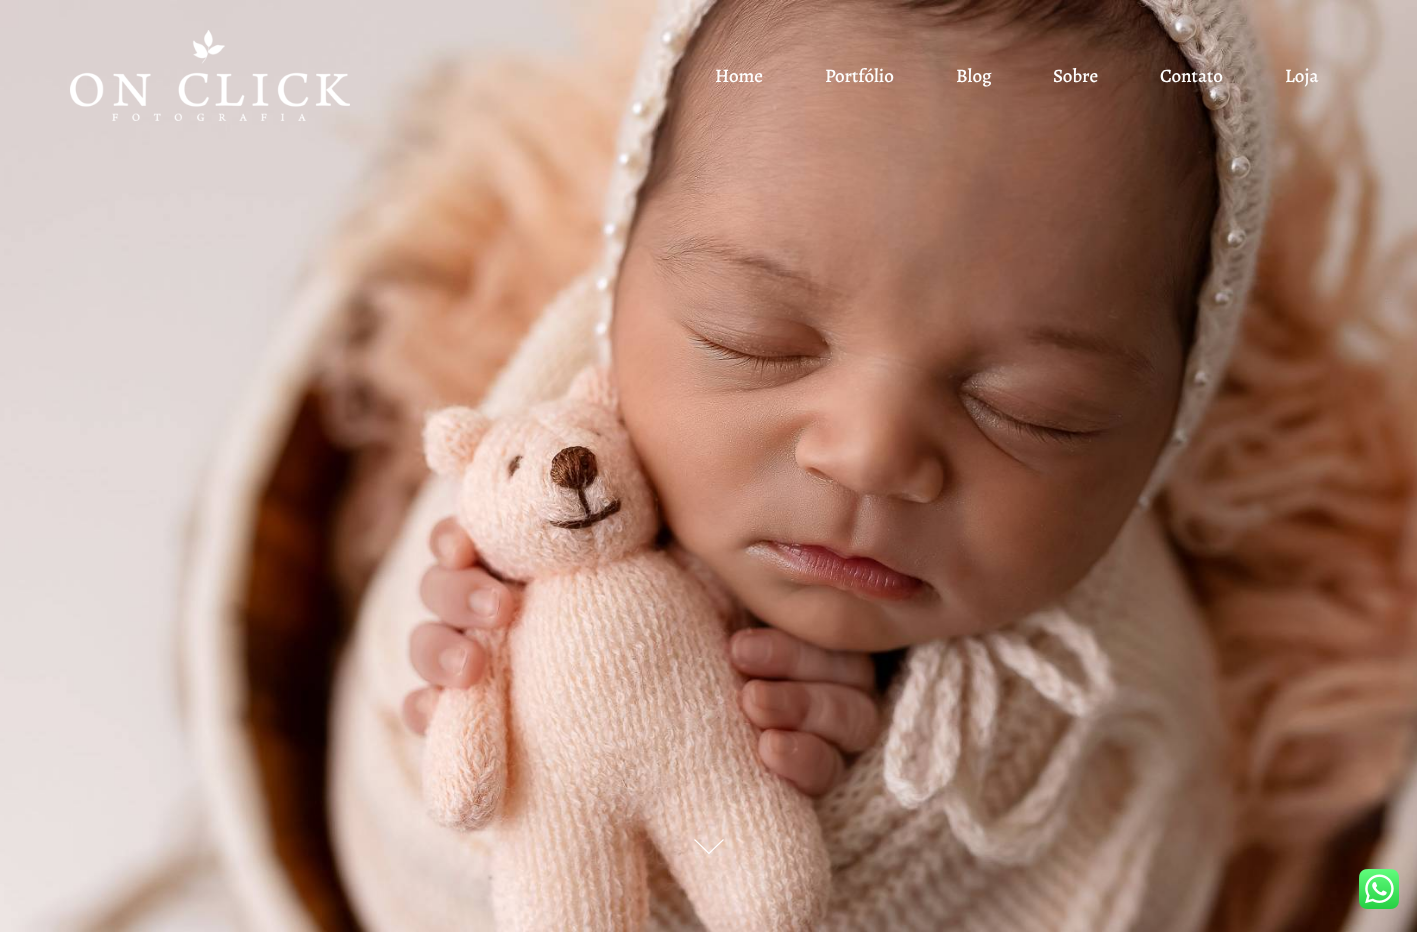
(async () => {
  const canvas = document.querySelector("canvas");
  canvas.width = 1417;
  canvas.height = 932;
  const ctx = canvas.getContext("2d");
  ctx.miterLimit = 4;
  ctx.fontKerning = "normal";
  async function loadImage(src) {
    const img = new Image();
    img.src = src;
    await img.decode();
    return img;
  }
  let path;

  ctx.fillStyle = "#ffffff";
  ctx.fillRect(0, 0, 1417, 932);
  ctx.drawImage(await loadImage("img/1.png"), 0, 0, 1417, 932);
  path = new Path2D("M694.5 839.5L709 853.5L723.5 839.5");
  ctx.strokeStyle = "#ffffff";
  ctx.lineWidth = 1.2;
  ctx.stroke(path);
  ctx.drawImage(await loadImage("img/2.png"), 70, 30, 280, 91);
  ctx.drawImage(await loadImage("img/3.png"), 1359, 869, 40, 40);
  ctx.font = "500 19px Alegreya";
  ctx.fillStyle = "#fefefe";
  for (const [text, x, y] of [
    ["Home", 715, 82],
    ["Portfólio", 825, 82],
    ["Blog", 956, 82],
    ["Sobre", 1053, 82],
    ["Contato", 1160, 82],
    ["Loja", 1285, 82],
  ]) {
    ctx.fillText(text, x, y);
  }
})();
